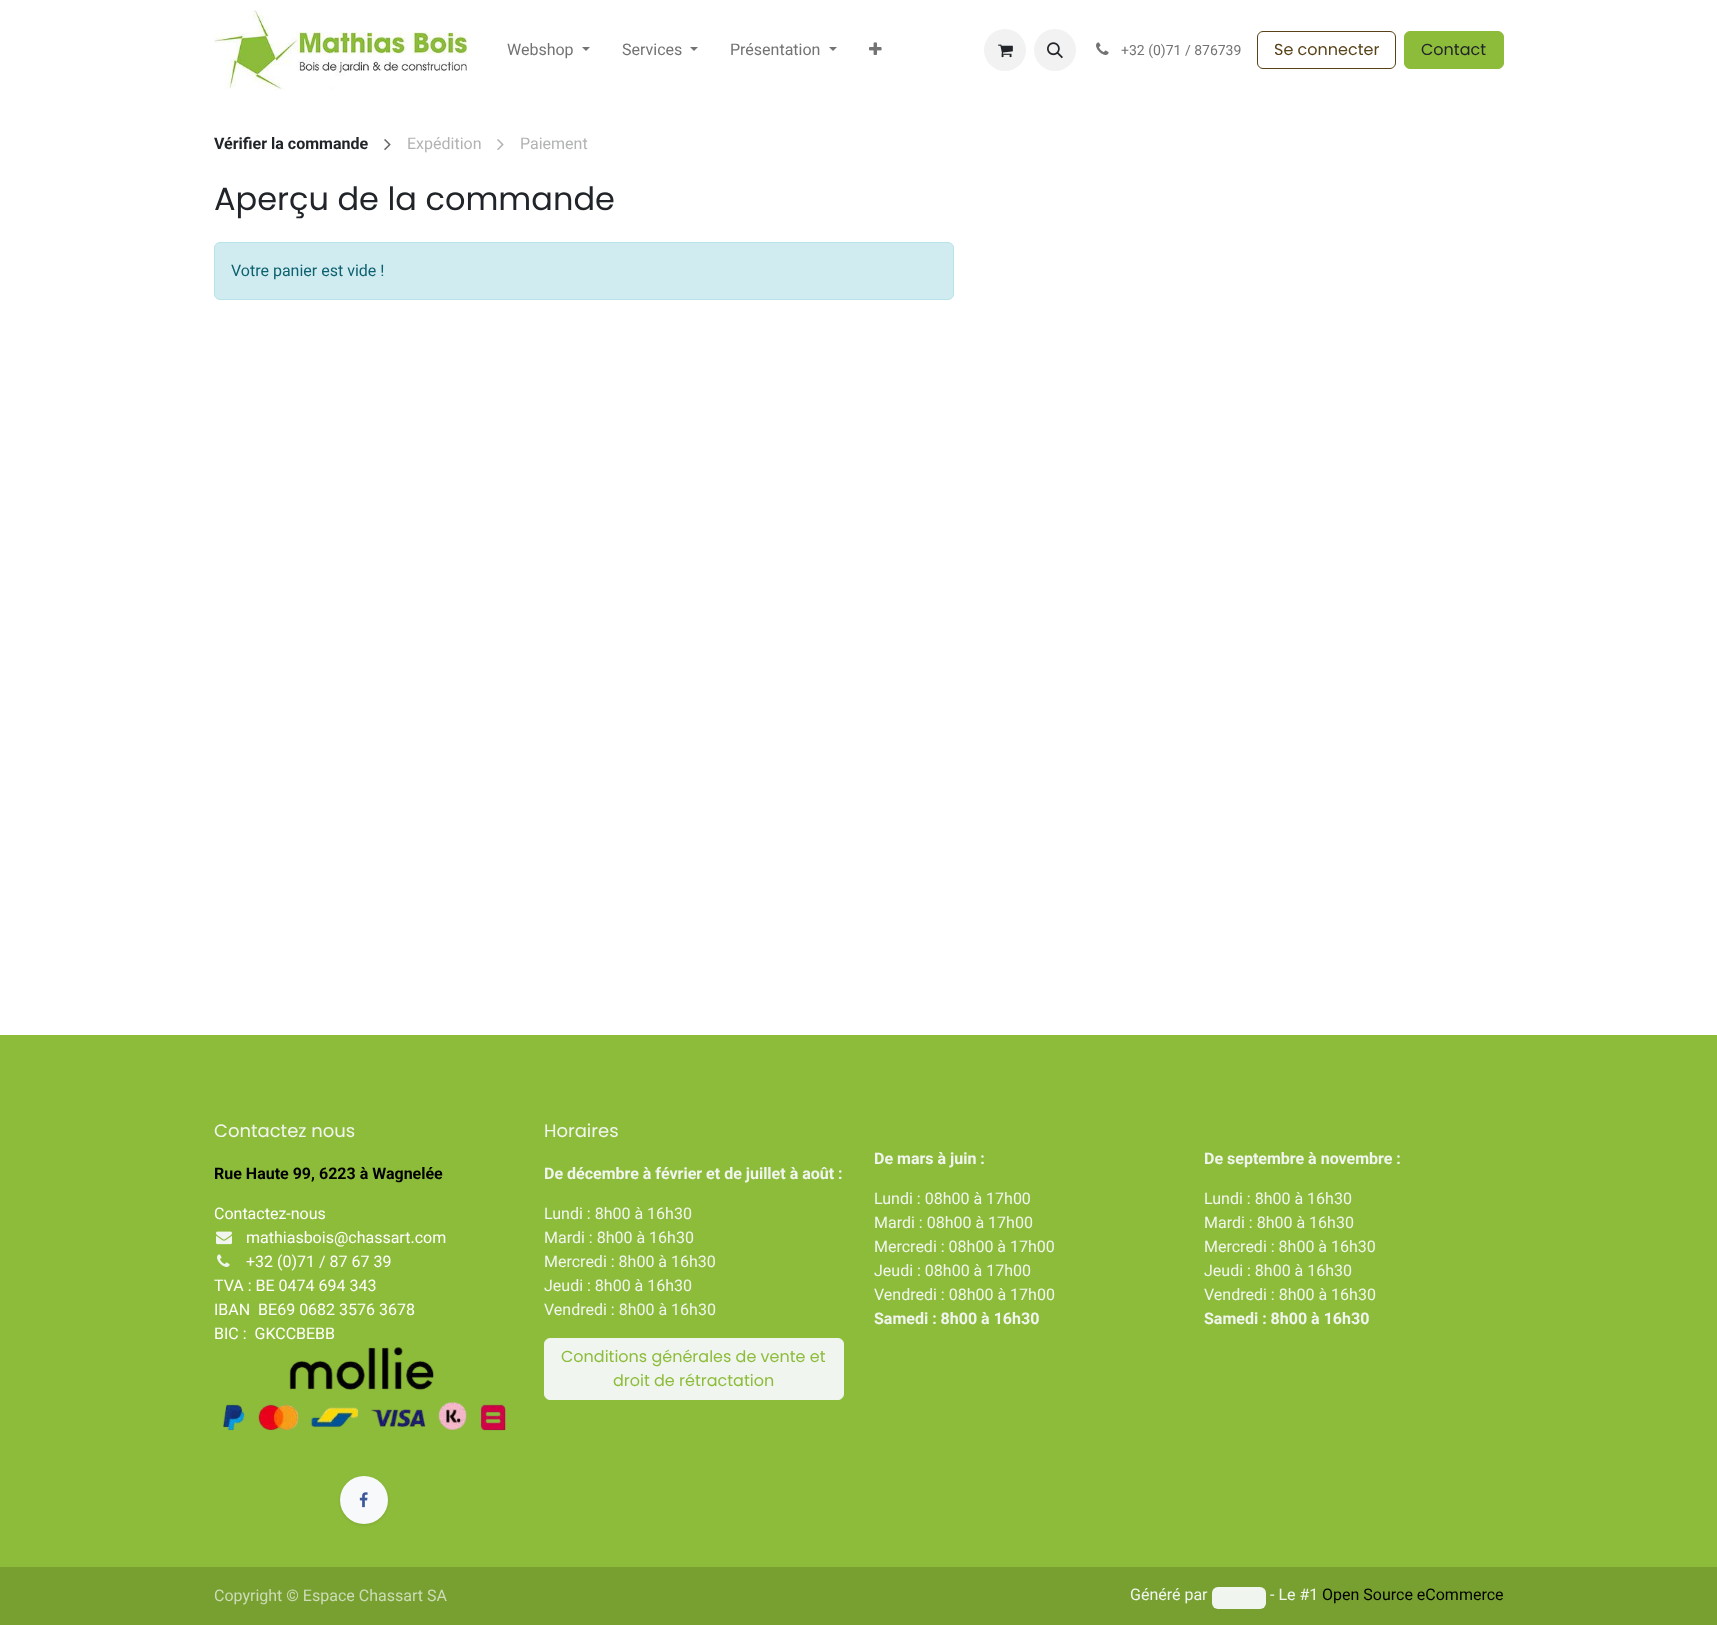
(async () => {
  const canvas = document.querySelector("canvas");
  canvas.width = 1717;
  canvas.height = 1625;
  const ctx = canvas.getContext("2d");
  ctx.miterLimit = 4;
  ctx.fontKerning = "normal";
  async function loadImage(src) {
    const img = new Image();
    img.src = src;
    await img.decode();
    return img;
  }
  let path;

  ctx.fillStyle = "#ffffff";
  ctx.fillRect(0, 0, 1717, 1625);
  ctx.drawImage(await loadImage("img/1.png"), 214, 10, 253, 80);
  ctx.fillStyle = "#737373";
  path = new Path2D("M582 47H590L586 51Z");
  ctx.fill(path);
  path = new Path2D("M690 47H698L694 51Z");
  ctx.fill(path);
  path = new Path2D("M829 47H837L833 51Z");
  ctx.fill(path);
  ctx.drawImage(await loadImage("img/2.png"), 869, 42, 13, 13);
  ctx.fillStyle = "#f2f2f2";
  ctx.beginPath();
  ctx.arc(1005, 50, 21, 0, Math.PI * 2);
  ctx.fill();
  ctx.drawImage(await loadImage("img/3.png"), 998, 44, 15, 14);
  ctx.beginPath();
  ctx.arc(1055, 50, 21, 0, Math.PI * 2);
  ctx.fill();
  ctx.drawImage(await loadImage("img/4.png"), 1047, 42, 16, 17);
  ctx.drawImage(await loadImage("img/5.png"), 1096, 42, 13, 13);
  ctx.beginPath();
  ctx.roundRect(1257.5, 31.5, 138, 37, 5.5);
  ctx.strokeStyle = "#584218";
  ctx.stroke();
  ctx.fillStyle = "#8dbc3a";
  ctx.beginPath();
  ctx.roundRect(1404.5, 31.5, 99, 37, 5.5);
  ctx.fill();
  ctx.strokeStyle = "#8dbc3a";
  ctx.stroke();
  ctx.drawImage(await loadImage("img/6.png"), 384, 139, 7, 12);
  ctx.drawImage(await loadImage("img/7.png"), 497, 139, 7, 11);
  ctx.fillStyle = "#d1ecf1";
  ctx.beginPath();
  ctx.roundRect(214.5, 242.5, 739, 57, 5.5);
  ctx.fill();
  ctx.strokeStyle = "#b9e3ea";
  ctx.stroke();
  ctx.fillStyle = "#8dbc3a";
  ctx.fillRect(0, 1035, 1717, 532);
  ctx.drawImage(await loadImage("img/8.png"), 216, 1231, 16, 14);
  ctx.drawImage(await loadImage("img/9.png"), 217, 1254, 13, 13);
  ctx.drawImage(await loadImage("img/10.png"), 223, 1347, 283, 84);
  ctx.fillStyle = "rgba(0, 0, 0, 0.1)";
  ctx.filter = "blur(1.5px)";
  ctx.beginPath();
  ctx.roundRect(340, 1477, 48, 48, 24);
  ctx.fill();
  ctx.filter = "none";
  ctx.fillStyle = "#f8f9fa";
  ctx.beginPath();
  ctx.arc(364, 1500, 24, 0, Math.PI * 2);
  ctx.fill();
  ctx.drawImage(await loadImage("img/11.png"), 359, 1492, 9, 16);
  ctx.fillStyle = "#f1f5f0";
  ctx.beginPath();
  ctx.roundRect(544.5, 1338.5, 299, 61, 5.5);
  ctx.fill();
  ctx.strokeStyle = "#f1f5f0";
  ctx.stroke();
  ctx.fillStyle = "#78a031";
  ctx.fillRect(0, 1567, 1717, 58);
  ctx.fillStyle = "#f1f5f0";
  ctx.beginPath();
  ctx.roundRect(1212, 1587, 54, 22, 6);
  ctx.fill();
  ctx.font = "16px Roboto";
  ctx.fillStyle = "#737373";
  for (const [text, x, y] of [
    ["Webshop", 507, 55],
    ["Services", 622, 55],
    ["Présentation", 730, 55],
  ]) {
    ctx.fillText(text, x, y);
  }
  ctx.font = "14px Roboto";
  ctx.fillText("+32 (0)71 / 876739", 1121, 55);
  ctx.font = "16px Poppins";
  ctx.fillStyle = "#584218";
  ctx.fillText("Se connecter", 1274, 55);
  ctx.fillStyle = "#212529";
  ctx.fillText("Contact", 1421, 55);
  ctx.font = "bold 16px Roboto";
  ctx.fillText("Vérifier la commande", 214, 149);
  ctx.font = "16px Roboto";
  ctx.fillStyle = "#b1b3b4";
  ctx.fillText("Expédition", 407, 149);
  ctx.fillText("Paiement", 520, 149);
  ctx.font = "32px Poppins";
  ctx.fillStyle = "#212529";
  ctx.fillText("Aperçu de la commande", 214, 210);
  ctx.font = "16px Roboto";
  ctx.fillStyle = "#0e616e";
  ctx.fillText("Votre panier est vide !", 231, 276);
  ctx.font = "18px Poppins";
  ctx.fillStyle = "#f1f5f0";
  ctx.fillText("Contactez nous", 214, 1137);
  ctx.font = "bold 16px Roboto";
  ctx.fillStyle = "#000000";
  ctx.fillText("Rue Haute 99, 6223 à Wagnelée", 214, 1179);
  ctx.font = "16px Roboto";
  ctx.fillStyle = "#ffffff";
  for (const [text, x, y] of [
    ["Contactez-nous", 214, 1219],
    ["mathiasbois@chassart.com", 246, 1243],
    ["+32 (0)71 / 87 67 39", 246, 1267],
    ["TVA : BE 0474 694 343", 214, 1291],
    ["IBAN  BE69 0682 3576 3678", 214, 1315],
    ["BIC :  GKCCBEBB", 214, 1339],
  ]) {
    ctx.fillText(text, x, y);
  }
  ctx.font = "18px Poppins";
  ctx.fillStyle = "#f1f5f0";
  ctx.fillText("Horaires", 544, 1137);
  ctx.font = "bold 16px Roboto";
  ctx.fillText("De décembre à février et de juillet à août :", 544, 1179);
  ctx.font = "16px Roboto";
  for (const [text, x, y] of [
    ["Lundi : 8h00 à 16h30", 544, 1219],
    ["Mardi : 8h00 à 16h30", 544, 1243],
    ["Mercredi : 8h00 à 16h30", 544, 1267],
    ["Jeudi : 8h00 à 16h30", 544, 1291],
    ["Vendredi : 8h00 à 16h30", 544, 1315],
  ]) {
    ctx.fillText(text, x, y);
  }
  ctx.font = "16px Poppins";
  ctx.fillStyle = "#8dbc3a";
  ctx.fillText("Conditions générales de vente et", 561, 1362);
  ctx.fillText("droit de rétractation", 613, 1386);
  ctx.font = "bold 16px Roboto";
  ctx.fillStyle = "#f1f5f0";
  ctx.fillText("De mars à juin :", 874, 1164);
  ctx.font = "16px Roboto";
  for (const [text, x, y] of [
    ["Lundi : 08h00 à 17h00", 874, 1204],
    ["Mardi : 08h00 à 17h00", 874, 1228],
    ["Mercredi : 08h00 à 17h00", 874, 1252],
    ["Jeudi : 08h00 à 17h00", 874, 1276],
    ["Vendredi : 08h00 à 17h00", 874, 1300],
  ]) {
    ctx.fillText(text, x, y);
  }
  ctx.font = "bold 16px Roboto";
  ctx.fillText("Samedi : 8h00 à 16h30", 874, 1324);
  ctx.fillText("De septembre à novembre :", 1204, 1164);
  ctx.font = "16px Roboto";
  for (const [text, x, y] of [
    ["Lundi : 8h00 à 16h30", 1204, 1204],
    ["Mardi : 8h00 à 16h30", 1204, 1228],
    ["Mercredi : 8h00 à 16h30", 1204, 1252],
    ["Jeudi : 8h00 à 16h30", 1204, 1276],
    ["Vendredi : 8h00 à 16h30", 1204, 1300],
  ]) {
    ctx.fillText(text, x, y);
  }
  ctx.font = "bold 16px Roboto";
  ctx.fillText("Samedi : 8h00 à 16h30", 1204, 1324);
  ctx.font = "16px Roboto";
  ctx.fillStyle = "#cddcb7";
  ctx.fillText("Copyright © Espace Chassart SA", 214, 1601);
  ctx.fillStyle = "#f1f5f0";
  ctx.fillText("Généré par", 1130, 1600);
  ctx.fillText("- Le #1", 1270, 1600);
  ctx.fillStyle = "#000000";
  ctx.fillText("Open Source eCommerce", 1322, 1600);
})();
